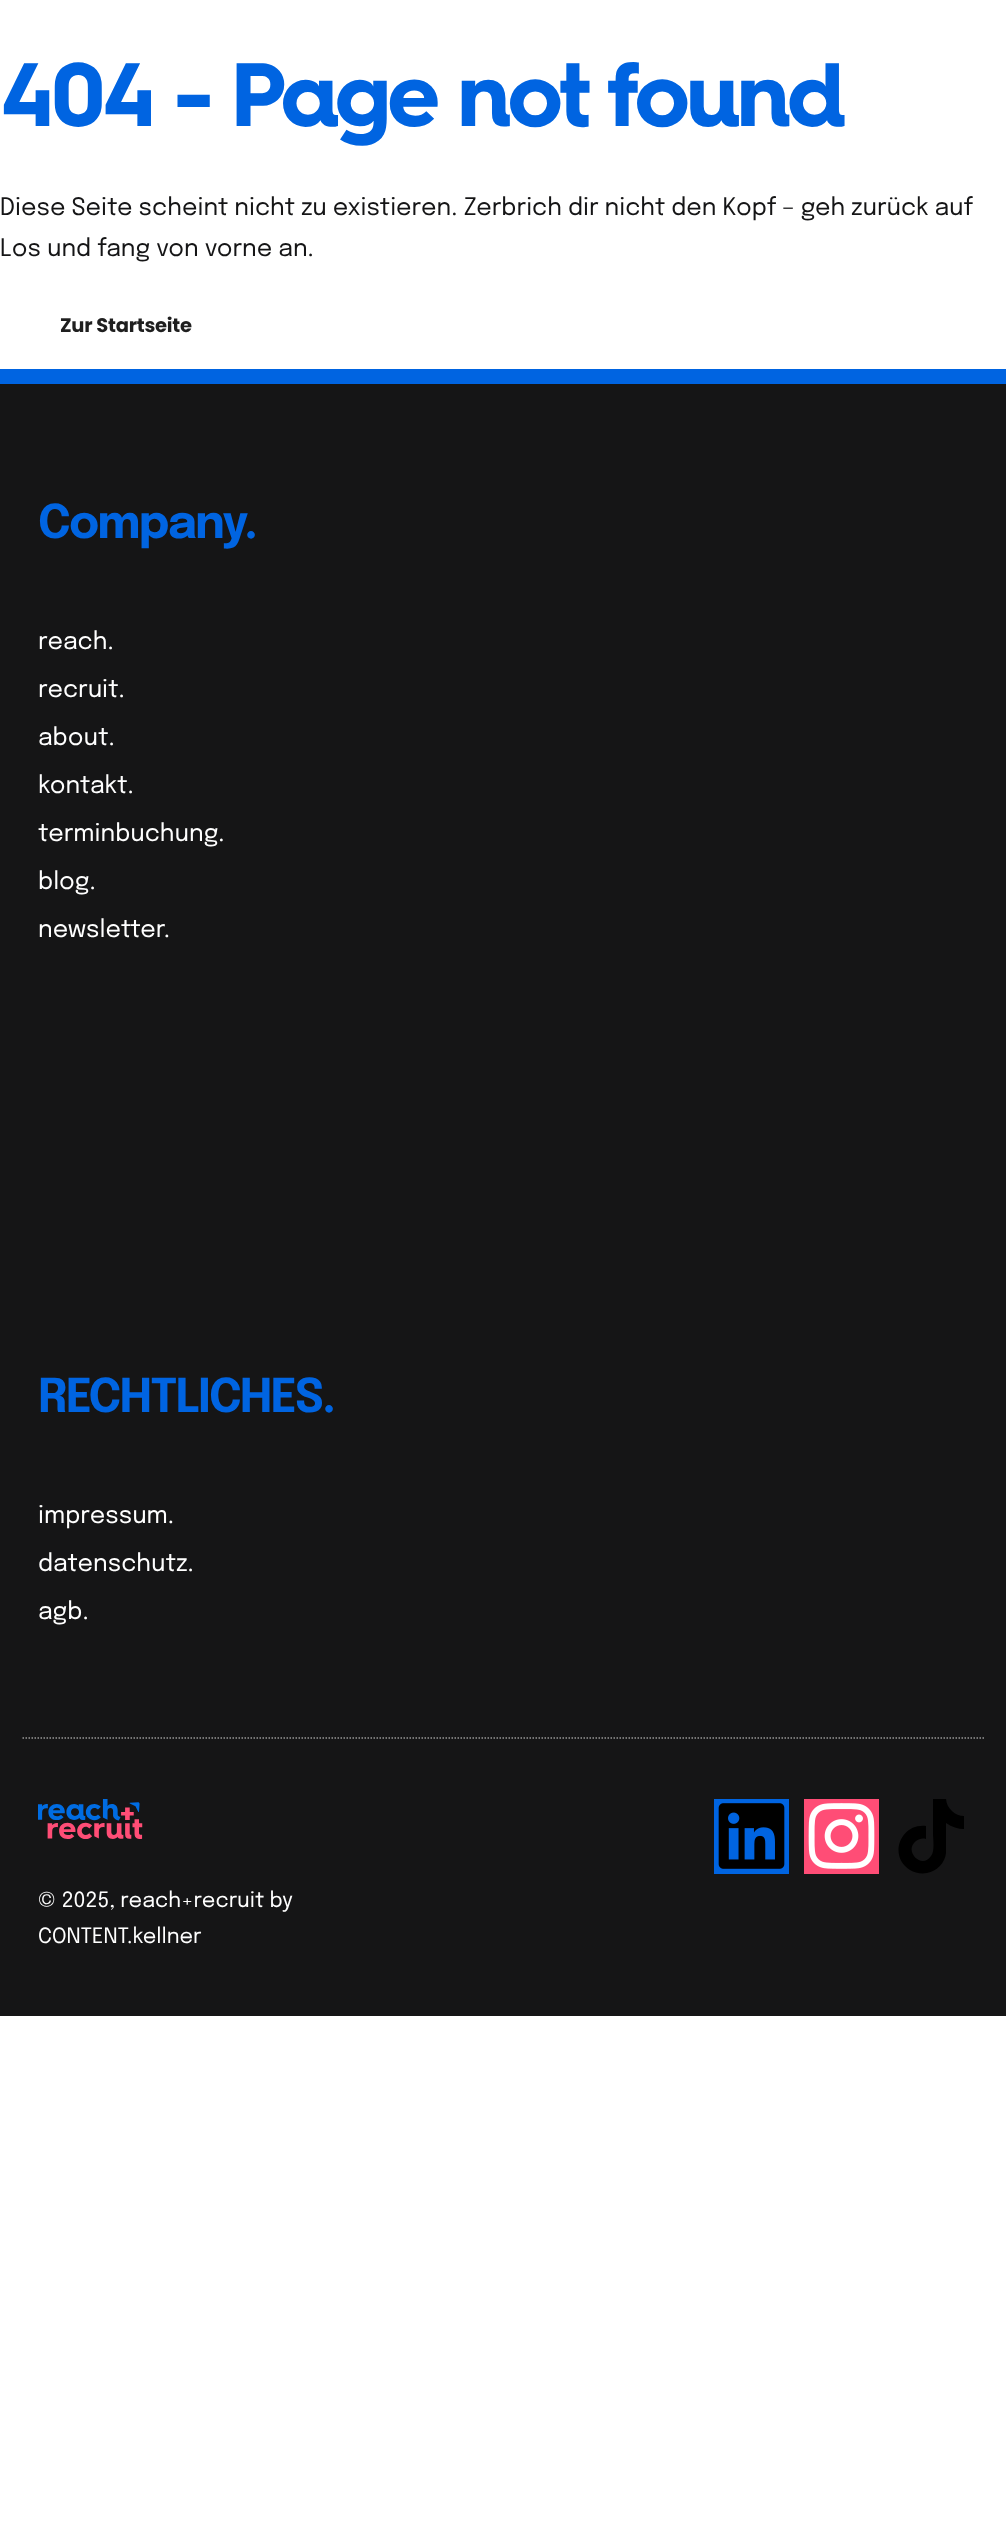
(async () => {
  const canvas = document.querySelector("canvas");
  canvas.width = 1006;
  canvas.height = 2535;
  const ctx = canvas.getContext("2d");
  ctx.miterLimit = 4;
  ctx.fontKerning = "normal";
  async function loadImage(src) {
    const img = new Image();
    img.src = src;
    await img.decode();
    return img;
  }
  let path;

  ctx.fillStyle = "#ffffff";
  ctx.fillRect(0, 0, 1006, 2535);
  ctx.fillStyle = "#151516";
  ctx.fillRect(0, 384, 1006, 1632);
  ctx.fillStyle = "#0064e1";
  ctx.fillRect(0, 369, 1006, 15);
  path = new Path2D("M22.5 1738H984");
  ctx.strokeStyle = "#989898";
  ctx.lineWidth = 1.5;
  ctx.setLineDash([1.5, 1.5]);
  ctx.stroke(path);
  ctx.fillRect(714, 1799, 75, 75);
  ctx.drawImage(await loadImage("img/1.png"), 718, 1803, 67, 66);
  ctx.fillStyle = "#ff4d76";
  ctx.fillRect(804, 1799, 75, 75);
  ctx.drawImage(await loadImage("img/2.png"), 808, 1803, 67, 66);
  ctx.save();
  ctx.beginPath();
  ctx.rect(894, 1799, 75, 75);
  ctx.clip();
  ctx.fillStyle = "#000000";
  path = new Path2D("M964 1829C958 1829 952 1827 946 1823V1853C945 1863 937 1871 927 1873C921 1874 915 1873 910 1870C888 1857 900 1823 926 1826V1839C922 1838 919 1839 916 1841C903 1851 922 1870 931 1856C935 1851 933 1839 933 1833V1798H946C946 1808 955 1816 964 1816Z");
  ctx.fill(path);
  ctx.restore();
  ctx.drawImage(await loadImage("img/3.png"), 38, 1799, 105, 40);
  ctx.letterSpacing = "-3.6px";
  ctx.font = "bold 90px 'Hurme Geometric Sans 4'";
  ctx.fillStyle = "#0064e1";
  ctx.fillText("404 - Page not found", 0, 126);
  ctx.letterSpacing = "0px";
  ctx.font = "24px Epilogue";
  ctx.fillStyle = "#151516";
  ctx.fillText("Diese Seite scheint nicht zu existieren. Zerbrich dir nicht den Kopf – geh zurück auf", 0, 215);
  ctx.fillText("Los und fang von vorne an.", 0, 256);
  ctx.letterSpacing = "-0.25px";
  ctx.font = "bold 19.5px Poppins";
  ctx.fillStyle = "#1f1f1f";
  ctx.fillText("Zur Startseite", 60, 332);
  ctx.letterSpacing = "-1.9px";
  ctx.font = "bold 46.5px Epilogue";
  ctx.fillStyle = "#0064e1";
  ctx.fillText("Company.", 38, 538);
  ctx.letterSpacing = "0px";
  ctx.font = "24px Epilogue";
  ctx.fillStyle = "#ffffff";
  for (const [text, x, y] of [
    ["reach.", 38, 649],
    ["recruit.", 38, 697],
    ["about.", 38, 745],
    ["kontakt.", 38, 793],
    ["terminbuchung.", 38, 841],
    ["blog.", 38, 889],
    ["newsletter.", 38, 937],
  ]) {
    ctx.fillText(text, x, y);
  }
  ctx.letterSpacing = "-1.9px";
  ctx.font = "bold 46.5px Epilogue";
  ctx.fillStyle = "#0064e1";
  ctx.fillText("RECHTLICHES.", 38, 1412);
  ctx.letterSpacing = "0px";
  ctx.font = "24px Epilogue";
  ctx.fillStyle = "#ffffff";
  for (const [text, x, y] of [
    ["impressum.", 38, 1523],
    ["datenschutz.", 38, 1571],
    ["agb.", 38, 1619],
  ]) {
    ctx.fillText(text, x, y);
  }
  ctx.font = "21px Epilogue";
  ctx.fillText("© 2025, reach+recruit by", 38, 1907);
  ctx.fillText("CONTENT.kellner", 38, 1943);
})();
